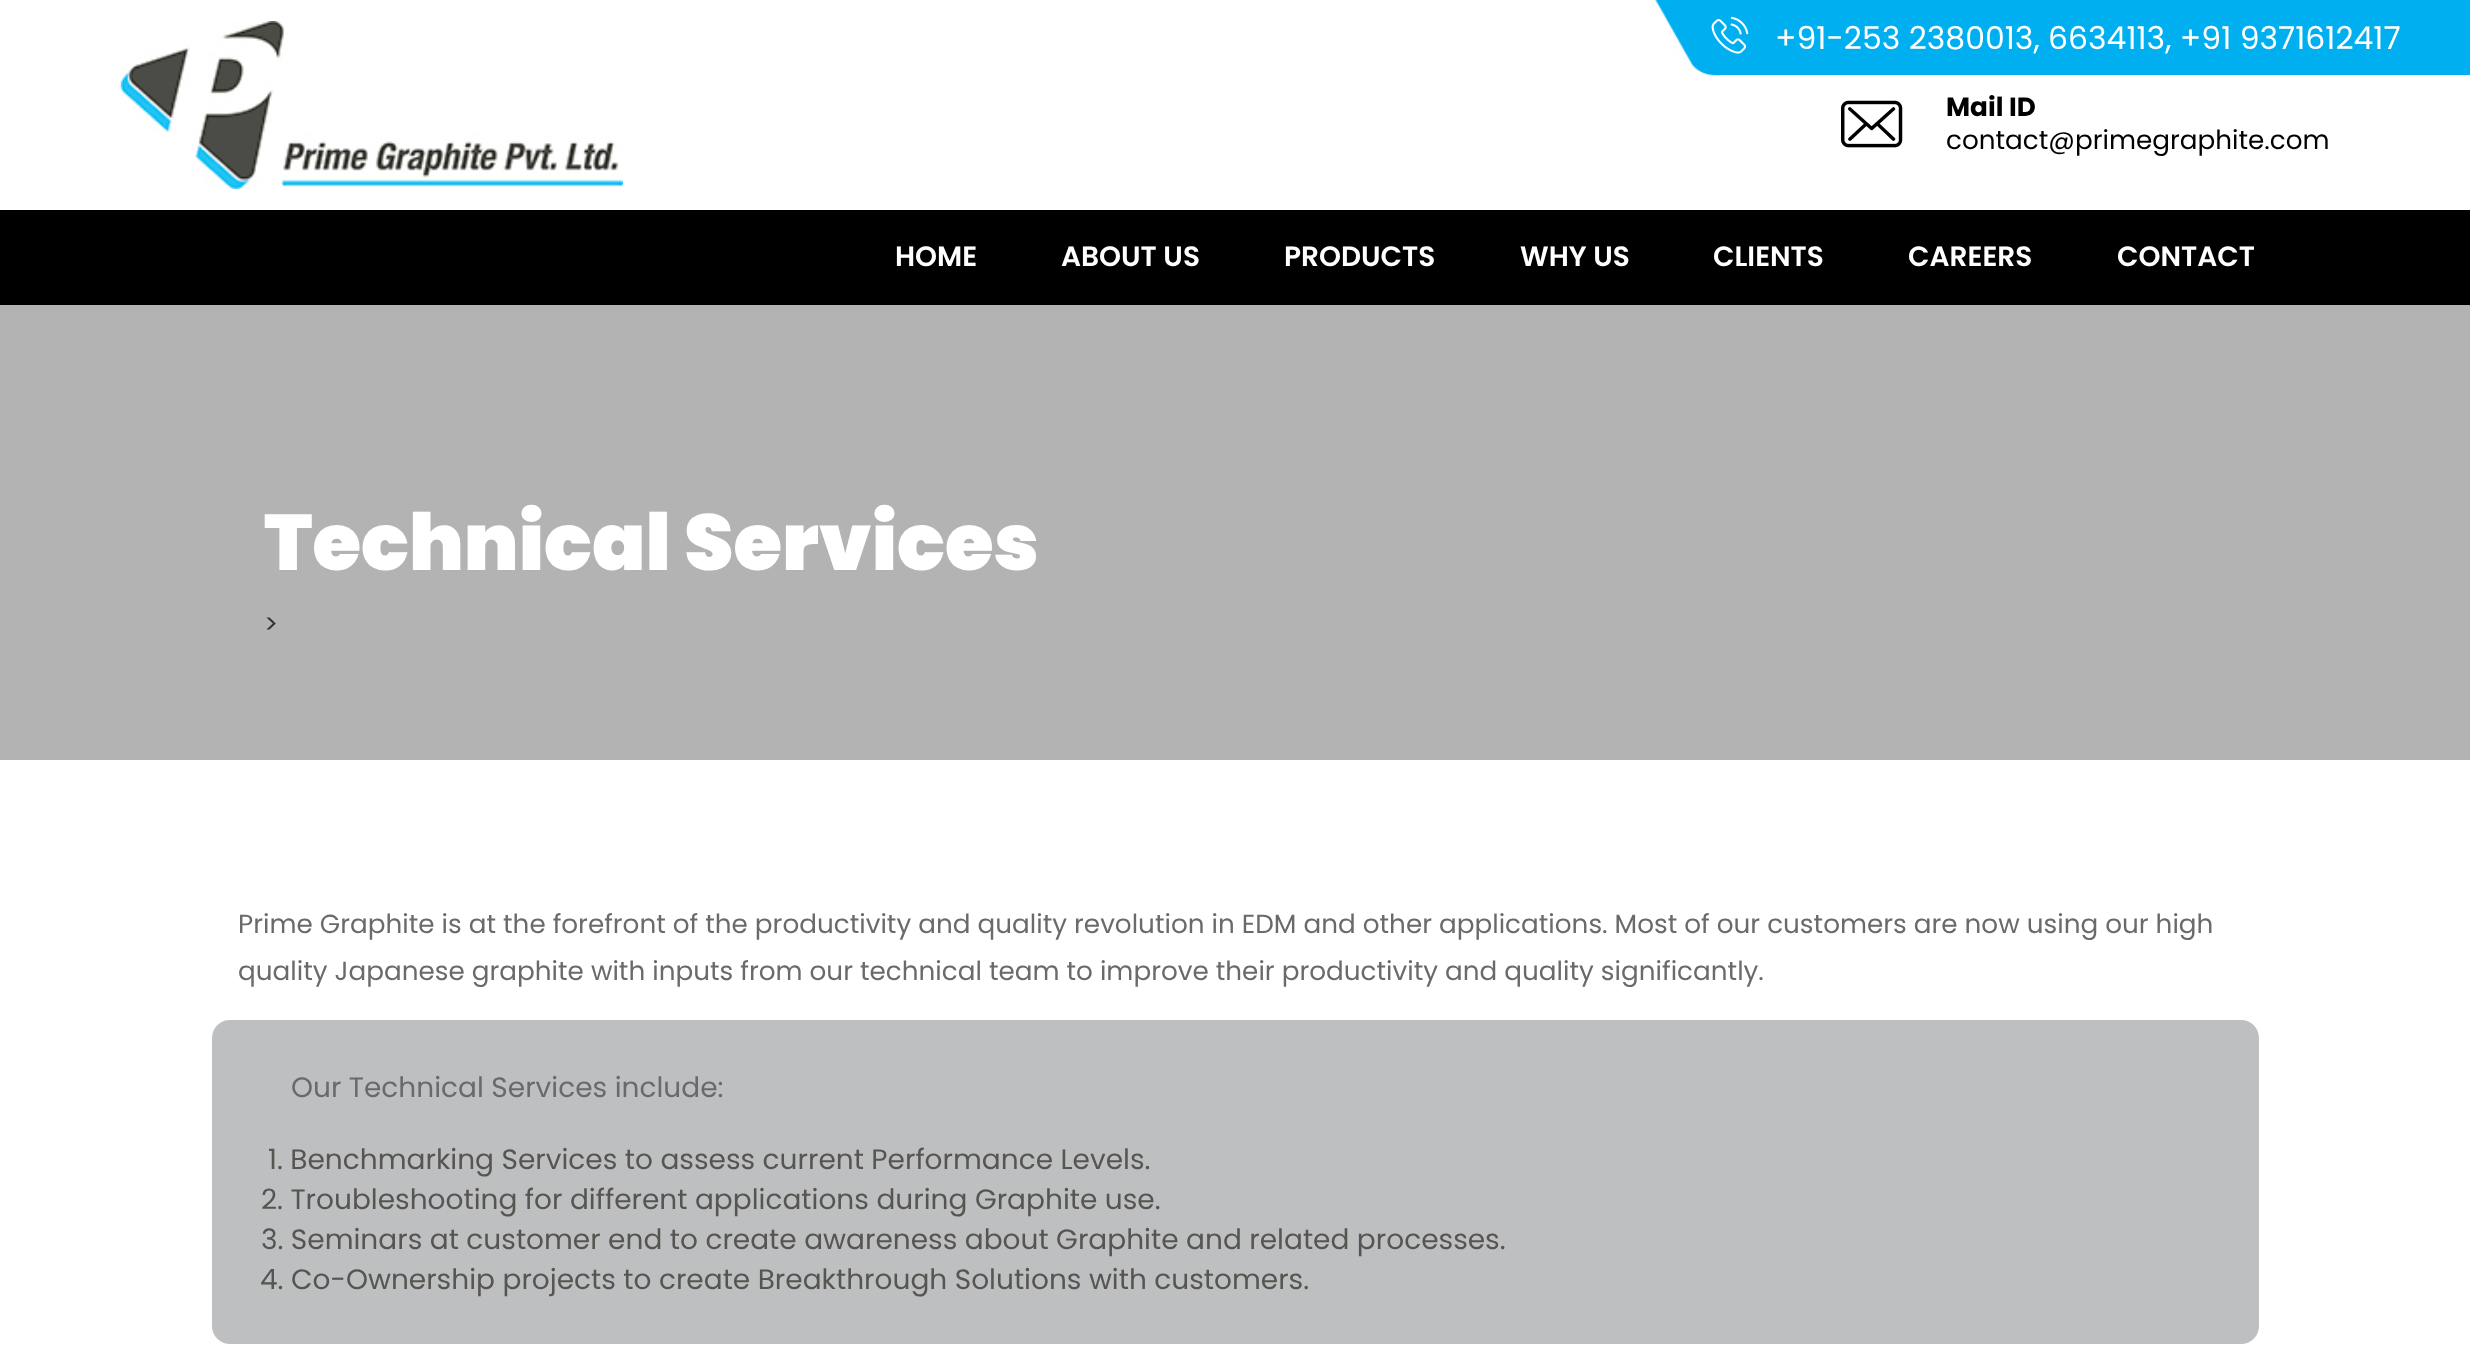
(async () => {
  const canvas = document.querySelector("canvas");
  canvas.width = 2470;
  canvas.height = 1363;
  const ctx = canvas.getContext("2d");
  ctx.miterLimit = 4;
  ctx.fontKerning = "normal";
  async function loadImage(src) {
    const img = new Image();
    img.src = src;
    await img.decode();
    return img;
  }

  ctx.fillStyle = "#ffffff";
  ctx.fillRect(0, 0, 2470, 1363);
  ctx.drawImage(await loadImage("img/1.png"), 120, 21, 503, 168);
  ctx.fillStyle = "#00afef";
  ctx.fillRect(1720, 0, 750, 75);
  ctx.drawImage(await loadImage("img/2.png"), 1655, 0, 66, 76);
  ctx.drawImage(await loadImage("img/3.png"), 1711, 16, 38, 38);
  ctx.drawImage(await loadImage("img/4.png"), 1841, 100, 62, 48);
  ctx.fillStyle = "#000000";
  ctx.fillRect(0, 210, 2470, 95);
  ctx.fillStyle = "#b3b3b3";
  ctx.fillRect(0, 305, 2470, 455);
  ctx.fillStyle = "#bdbfc1";
  ctx.beginPath();
  ctx.roundRect(212, 1020, 2047, 324, 18);
  ctx.fill();
  ctx.font = "31.5px Poppins";
  ctx.fillStyle = "#ffffff";
  ctx.fillText("+91-253 2380013, 6634113, +91 9371612417", 1775, 49);
  ctx.font = "bold 26.25px Poppins";
  ctx.fillStyle = "#000000";
  ctx.fillText("Mail ID", 1946, 116);
  ctx.font = "26.25px Poppins";
  ctx.fillText("contact@primegraphite.com", 1946, 149);
  ctx.font = "600 28px Poppins";
  ctx.fillStyle = "#ffffff";
  for (const [text, x, y] of [
    ["HOME", 895, 266],
    ["ABOUT US", 1061, 266],
    ["PRODUCTS", 1284, 266],
    ["WHY US", 1520, 266],
    ["CLIENTS", 1713, 266],
    ["CAREERS", 1908, 266],
    ["CONTACT", 2117, 266],
  ]) {
    ctx.fillText(text, x, y);
  }
  ctx.font = "900 78.75px Poppins";
  ctx.fillText("Technical Services", 264, 570);
  ctx.font = "26.25px Poppins";
  ctx.fillStyle = "#333333";
  ctx.fillText(">", 264, 633);
  ctx.fillStyle = "#6a6a6a";
  ctx.fillText("Prime Graphite is at the forefront of the productivity and quality revolution in EDM and other applications. Most of our customers are now using our high", 238, 933);
  ctx.fillText("quality Japanese graphite with inputs from our technical team to improve their productivity and quality significantly.", 238, 980);
  ctx.font = "28px Poppins";
  ctx.fillText("Our Technical Services include:", 291, 1097);
  ctx.fillStyle = "#565551";
  for (const [text, x, y] of [
    ["1. Benchmarking Services to assess current Performance Levels.", 268, 1169],
    ["2. Troubleshooting for different applications during Graphite use.", 261, 1209],
    ["3. Seminars at customer end to create awareness about Graphite and related processes.", 261, 1249],
    ["4. Co-Ownership projects to create Breakthrough Solutions with customers.", 260, 1289],
  ]) {
    ctx.fillText(text, x, y);
  }
})();
